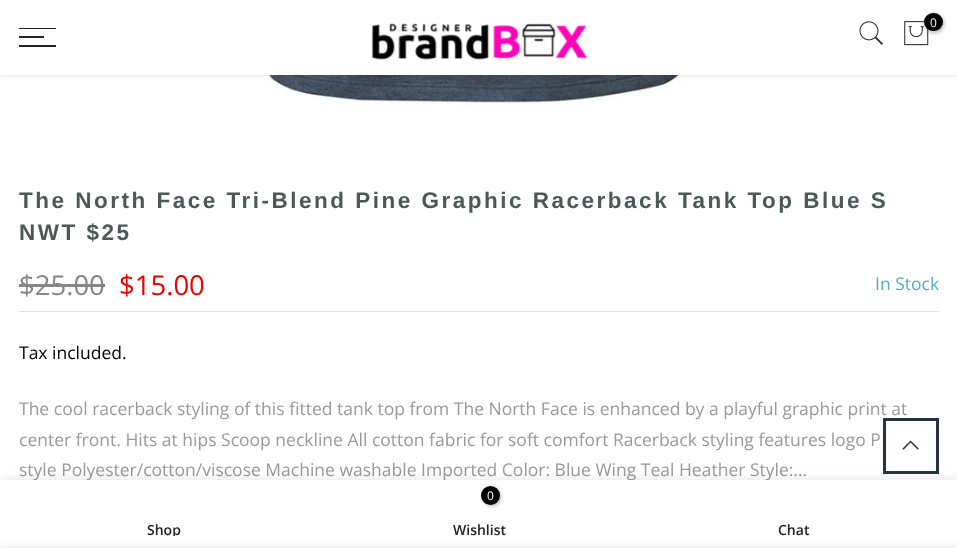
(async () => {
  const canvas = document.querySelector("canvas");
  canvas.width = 957;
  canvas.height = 548;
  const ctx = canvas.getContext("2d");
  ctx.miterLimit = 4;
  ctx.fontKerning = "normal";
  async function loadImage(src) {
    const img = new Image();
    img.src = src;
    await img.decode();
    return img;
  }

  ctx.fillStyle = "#ffffff";
  ctx.fillRect(0, 0, 957, 548);
  ctx.drawImage(await loadImage("img/4.png"), 268, 75, 423, 33);
  ctx.fillStyle = "rgba(0, 0, 0, 0.1)";
  ctx.filter = "blur(2px)";
  ctx.beginPath();
  ctx.rect(0, 1, 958, 75);
  ctx.fill();
  ctx.filter = "none";
  for (const [x, y, w, h, color] of [
    [0, 0, 957, 75, "#ffffff"],
    [19, 28, 37, 1, "#222222"],
    [19, 36, 25, 2, "#222222"],
    [19, 45, 37, 2, "#222222"],
  ]) {
    ctx.fillStyle = color;
    ctx.fillRect(x, y, w, h);
  }
  ctx.drawImage(await loadImage("img/1.png"), 372, 23, 216, 37);
  ctx.drawImage(await loadImage("img/2.png"), 859, 21, 24, 24);
  ctx.drawImage(await loadImage("img/3.png"), 904, 21, 25, 25);
  ctx.fillStyle = "rgba(0, 0, 0, 0.3)";
  ctx.filter = "blur(2px)";
  ctx.beginPath();
  ctx.roundRect(925, 14, 19, 19, 9.5);
  ctx.fill();
  ctx.filter = "none";
  ctx.fillStyle = "#000000";
  ctx.beginPath();
  ctx.roundRect(924, 13, 19, 18, 9);
  ctx.fill();
  ctx.fillStyle = "#e5e5e5";
  ctx.fillRect(19, 311, 920, 1);
  ctx.fillStyle = "#878787";
  ctx.fillRect(19, 284, 86, 3);
  ctx.font = "12px Open Sans";
  ctx.fillStyle = "#ffffff";
  ctx.fillText("0", 930, 27);
  ctx.letterSpacing = "2.5px";
  ctx.font = "bold 22.5px Liberation Sans";
  ctx.fillStyle = "#4d5959";
  ctx.fillText("The North Face Tri-Blend Pine Graphic Racerback Tank Top Blue S", 19, 208);
  ctx.fillText("NWT $25", 19, 240);
  ctx.letterSpacing = "0px";
  ctx.font = "27.5px Open Sans";
  ctx.fillStyle = "#878787";
  ctx.fillText("$25.00", 19, 295);
  ctx.fillStyle = "#ec0101";
  ctx.fillText("$15.00", 119, 295);
  ctx.font = "17.5px Open Sans";
  ctx.fillStyle = "#4eb0be";
  ctx.fillText("In Stock", 875, 290);
  ctx.fillStyle = "#000000";
  ctx.fillText("Tax included.", 19, 359);
  ctx.fillStyle = "#999999";
  for (const [text, x, y] of [
    ["The cool racerback styling of this fitted tank top from The North Face is enhanced by a playful graphic print at", 19, 415],
    ["center front. Hits at hips Scoop neckline All cotton fabric for soft comfort Racerback styling features logo P", 19, 446],
    ["style Polyester/cotton/viscose Machine washable Imported Color: Blue Wing Teal Heather Style:...", 19, 476],
  ]) {
    ctx.fillText(text, x, y);
  }
  ctx.strokeStyle = "#293341";
  ctx.lineWidth = 3;
  ctx.strokeRect(884.5, 419.5, 53, 53);
  ctx.drawImage(await loadImage("img/5.png"), 902, 440, 17, 10);
  ctx.fillStyle = "rgba(0, 0, 0, 0.12)";
  ctx.filter = "blur(5.5px)";
  ctx.beginPath();
  ctx.rect(0, 480, 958, 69);
  ctx.fill();
  ctx.filter = "none";
  ctx.fillStyle = "#ffffff";
  ctx.fillRect(0, 480, 957, 68);
  ctx.save();
  ctx.beginPath();
  ctx.rect(19, 523, 290, 13);
  ctx.clip();
  ctx.font = "600 14px Open Sans";
  ctx.fillStyle = "#222222";
  ctx.fillText("Shop", 147, 535);
  ctx.restore();
  ctx.fillStyle = "rgba(0, 0, 0, 0.3)";
  ctx.filter = "blur(2px)";
  ctx.beginPath();
  ctx.roundRect(483, 488, 18, 18, 9);
  ctx.fill();
  ctx.filter = "none";
  ctx.fillStyle = "#000000";
  ctx.beginPath();
  ctx.arc(490.5, 495.5, 9.5, 0, Math.PI * 2);
  ctx.fill();
  ctx.font = "12px Open Sans";
  ctx.fillStyle = "#ffffff";
  ctx.fillText("0", 487, 500);
  ctx.font = "600 14px Open Sans";
  ctx.fillStyle = "#222222";
  ctx.fillText("Wishlist", 453, 535);
  ctx.fillText("Chat", 778, 535);
  ctx.fillStyle = "rgba(0, 0, 0, 0.14)";
  ctx.filter = "blur(5.5px)";
  ctx.beginPath();
  ctx.rect(0, 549, 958, 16);
  ctx.fill();
  ctx.filter = "none";
})();
